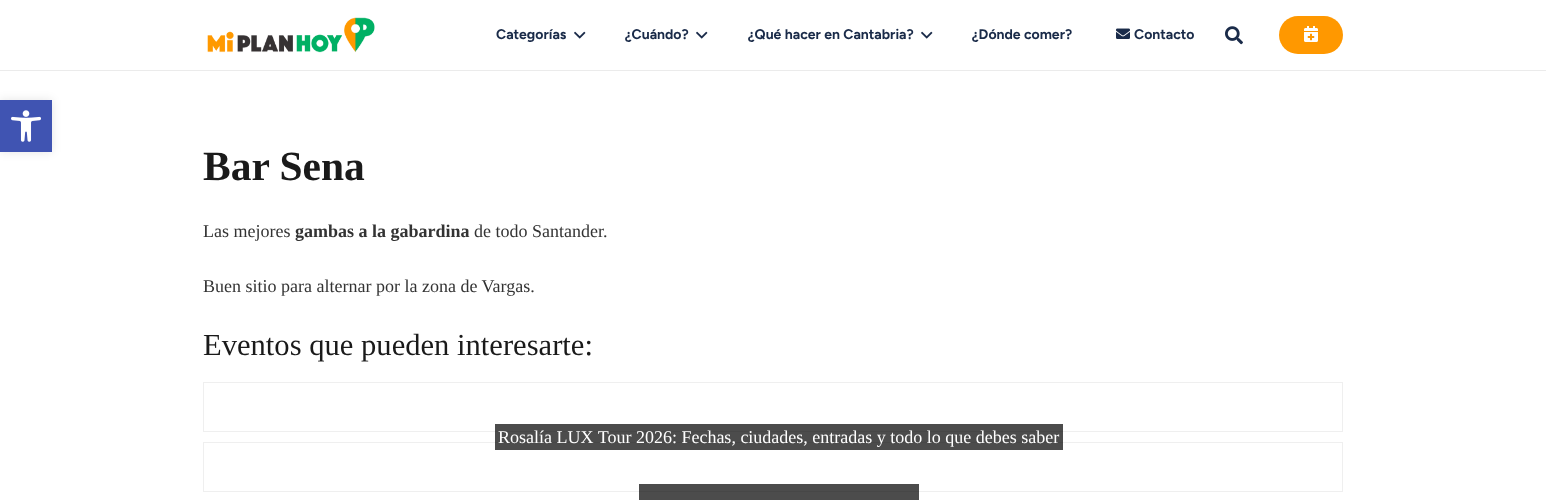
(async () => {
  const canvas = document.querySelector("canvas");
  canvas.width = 1546;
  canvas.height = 500;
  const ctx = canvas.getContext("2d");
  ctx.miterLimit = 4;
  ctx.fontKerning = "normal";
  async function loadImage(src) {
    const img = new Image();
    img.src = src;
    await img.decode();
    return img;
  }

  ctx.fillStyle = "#ffffff";
  ctx.fillRect(0, 0, 1546, 500);
  ctx.fillStyle = "rgba(0, 0, 0, 0.1)";
  ctx.filter = "blur(5px)";
  ctx.beginPath();
  ctx.rect(0, 100, 52, 52);
  ctx.fill();
  ctx.filter = "none";
  ctx.fillStyle = "#4054b2";
  ctx.fillRect(0, 100, 52, 52);
  ctx.drawImage(await loadImage("img/1.png"), 11, 110, 30, 32);
  ctx.fillStyle = "#ebebeb";
  ctx.fillRect(0, 70, 1546, 1);
  ctx.drawImage(await loadImage("img/2.png"), 207, 17, 168, 36);
  ctx.drawImage(await loadImage("img/3.png"), 574, 31, 12, 8);
  ctx.drawImage(await loadImage("img/3.png"), 696, 31, 12, 8);
  ctx.drawImage(await loadImage("img/3.png"), 921, 31, 12, 8);
  ctx.drawImage(await loadImage("img/4.png"), 1116, 28, 14, 11);
  ctx.drawImage(await loadImage("img/5.png"), 1225, 26, 18, 19);
  ctx.fillStyle = "#ff9800";
  ctx.beginPath();
  ctx.roundRect(1279, 16, 64, 38, 19);
  ctx.fill();
  ctx.drawImage(await loadImage("img/6.png"), 1304, 26, 14, 16);
  ctx.strokeStyle = "#efefef";
  ctx.strokeRect(203.5, 382.5, 1139, 49);
  ctx.strokeRect(203.5, 442.5, 1139, 49);
  ctx.fillStyle = "rgba(0, 0, 0, 0.7)";
  ctx.fillRect(495, 424, 568, 26);
  ctx.fillRect(639, 484, 280, 16);
  ctx.font = "bold 14px Figtree";
  ctx.fillStyle = "#1a2b49";
  for (const [text, x, y] of [
    ["Categorías", 496, 39],
    ["¿Cuándo?", 625, 39],
    ["¿Qué hacer en Cantabria?", 748, 39],
    ["¿Dónde comer?", 972, 39],
    ["Contacto", 1134, 39],
  ]) {
    ctx.fillText(text, x, y);
  }
  ctx.font = "bold 41.5px Liberation Serif";
  ctx.fillStyle = "#1a1a1a";
  ctx.fillText("Bar Sena", 203, 180);
  ctx.font = "18px Liberation Serif";
  ctx.fillStyle = "#333333";
  ctx.fillText("Las mejores", 203, 237);
  ctx.font = "bold 18px Liberation Serif";
  ctx.fillText("gambas a la gabardina", 295, 237);
  ctx.font = "18px Liberation Serif";
  ctx.fillText("de todo Santander.", 474, 237);
  ctx.fillText("Buen sitio para alternar por la zona de Vargas.", 203, 292);
  ctx.font = "30.6px Liberation Serif";
  ctx.fillStyle = "#1a1a1a";
  ctx.fillText("Eventos que pueden interesarte:", 203, 355);
  ctx.font = "18px Liberation Serif";
  ctx.fillStyle = "#ffffff";
  ctx.fillText("Rosalía LUX Tour 2026: Fechas, ciudades, entradas y todo lo que debes saber", 498, 443);
})();
